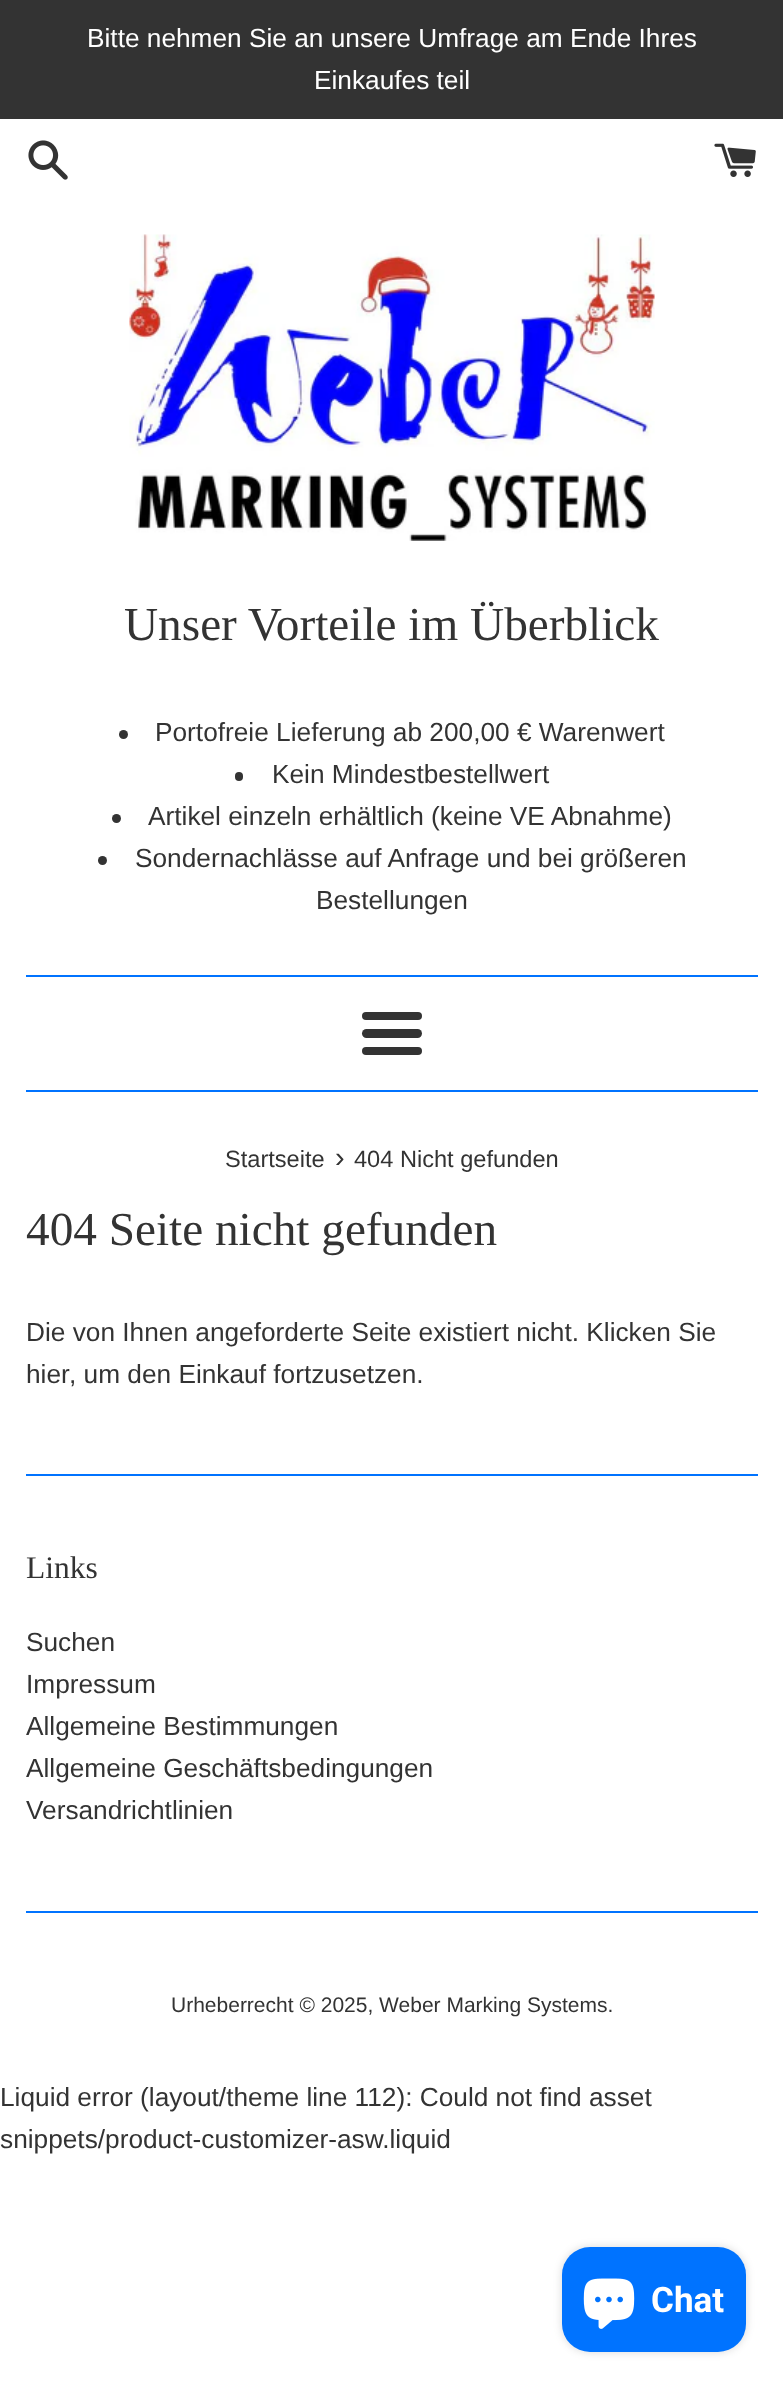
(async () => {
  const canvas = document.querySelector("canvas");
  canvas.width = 783;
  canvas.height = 2388;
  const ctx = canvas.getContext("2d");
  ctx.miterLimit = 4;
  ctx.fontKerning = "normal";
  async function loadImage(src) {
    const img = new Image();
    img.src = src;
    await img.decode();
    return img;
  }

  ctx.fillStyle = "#ffffff";
  ctx.fillRect(0, 0, 783, 2388);
  ctx.fillStyle = "#333333";
  ctx.fillRect(0, 0, 783, 119);
  ctx.drawImage(await loadImage("img/1.png"), 28, 140, 40, 40);
  ctx.drawImage(await loadImage("img/2.png"), 714, 143, 42, 34);
  ctx.drawImage(await loadImage("img/3.png"), 129, 234, 526, 307);
  ctx.beginPath();
  ctx.arc(123.5, 734.5, 4.5, 0, Math.PI * 2);
  ctx.fill();
  ctx.beginPath();
  ctx.roundRect(235, 772, 8, 9, 4);
  ctx.fill();
  ctx.beginPath();
  ctx.arc(116.5, 818.5, 4.5, 0, Math.PI * 2);
  ctx.fill();
  ctx.beginPath();
  ctx.arc(102.5, 860.5, 4.5, 0, Math.PI * 2);
  ctx.fill();
  ctx.fillStyle = "#0073ff";
  ctx.fillRect(26, 975, 732, 2);
  ctx.fillStyle = "#333333";
  ctx.beginPath();
  ctx.roundRect(362, 1012, 60, 8, 4);
  ctx.fill();
  ctx.beginPath();
  ctx.roundRect(362, 1029, 60, 9, 4.5);
  ctx.fill();
  ctx.beginPath();
  ctx.roundRect(362, 1047, 60, 8, 4);
  ctx.fill();
  for (const [x, y, w, h, color] of [
    [26, 1090, 732, 2, "#0073ff"],
    [26, 1474, 732, 2, "#0073ff"],
    [26, 1911, 732, 2, "#0073ff"],
  ]) {
    ctx.fillStyle = color;
    ctx.fillRect(x, y, w, h);
  }
  ctx.fillStyle = "rgba(0, 0, 0, 0.15)";
  ctx.filter = "blur(4.5px)";
  ctx.beginPath();
  ctx.roundRect(562, 2247, 184, 105, 28);
  ctx.fill();
  ctx.filter = "none";
  ctx.fillStyle = "#0073ff";
  ctx.beginPath();
  ctx.roundRect(562, 2247, 184, 105, 28);
  ctx.fill();
  ctx.drawImage(await loadImage("img/4.png"), 583, 2278, 52, 51);
  ctx.font = "26.25px Liberation Sans";
  ctx.fillStyle = "#ffffff";
  ctx.fillText("Bitte nehmen Sie an unsere Umfrage am Ende Ihres", 87, 47);
  ctx.fillText("Einkaufes teil", 314, 89);
  ctx.font = "47.25px Liberation Serif";
  ctx.fillStyle = "#333333";
  ctx.fillText("Unser Vorteile im Überblick", 124, 640);
  ctx.font = "26.25px Liberation Sans";
  for (const [text, x, y] of [
    ["Portofreie Lieferung ab 200,00 € Warenwert", 155, 741],
    ["Kein Mindestbestellwert", 272, 783],
    ["Artikel einzeln erhältlich (keine VE Abnahme)", 148, 825],
    ["Sondernachlässe auf Anfrage und bei größeren", 135, 867],
    ["Bestellungen", 316, 909],
  ]) {
    ctx.fillText(text, x, y);
  }
  ctx.font = "23.6px Liberation Sans";
  ctx.fillText("Startseite", 225, 1167);
  ctx.font = "29px Liberation Sans";
  ctx.fillText("›", 335, 1167);
  ctx.font = "23.6px Liberation Sans";
  ctx.fillText("404 Nicht gefunden", 354, 1167);
  ctx.font = "47.25px Liberation Serif";
  ctx.fillText("404 Seite nicht gefunden", 26, 1245);
  ctx.font = "26.25px Liberation Sans";
  for (const [text, x, y] of [
    ["Die von Ihnen angeforderte Seite existiert nicht. Klicken Sie", 26, 1341],
    ["hier", 26, 1383],
    [", um den Einkauf fortzusetzen.", 69, 1383],
  ]) {
    ctx.fillText(text, x, y);
  }
  ctx.font = "31.5px Liberation Serif";
  ctx.fillText("Links", 26, 1578);
  ctx.font = "26.25px Liberation Sans";
  for (const [text, x, y] of [
    ["Suchen", 26, 1651],
    ["Impressum", 26, 1693],
    ["Allgemeine Bestimmungen", 26, 1735],
    ["Allgemeine Geschäftsbedingungen", 26, 1777],
    ["Versandrichtlinien", 26, 1819],
  ]) {
    ctx.fillText(text, x, y);
  }
  ctx.font = "21px Liberation Sans";
  ctx.fillText("Urheberrecht © 2025, Weber Marking Systems.", 171, 2012);
  ctx.font = "26.25px Liberation Sans";
  ctx.fillText("Liquid error (layout/theme line 112): Could not find asset", 0, 2106);
  ctx.fillText("snippets/product-customizer-asw.liquid", 0, 2148);
  ctx.font = "bold 35px Roboto";
  ctx.fillStyle = "#ffffff";
  ctx.fillText("Chat", 651, 2312);
})();
